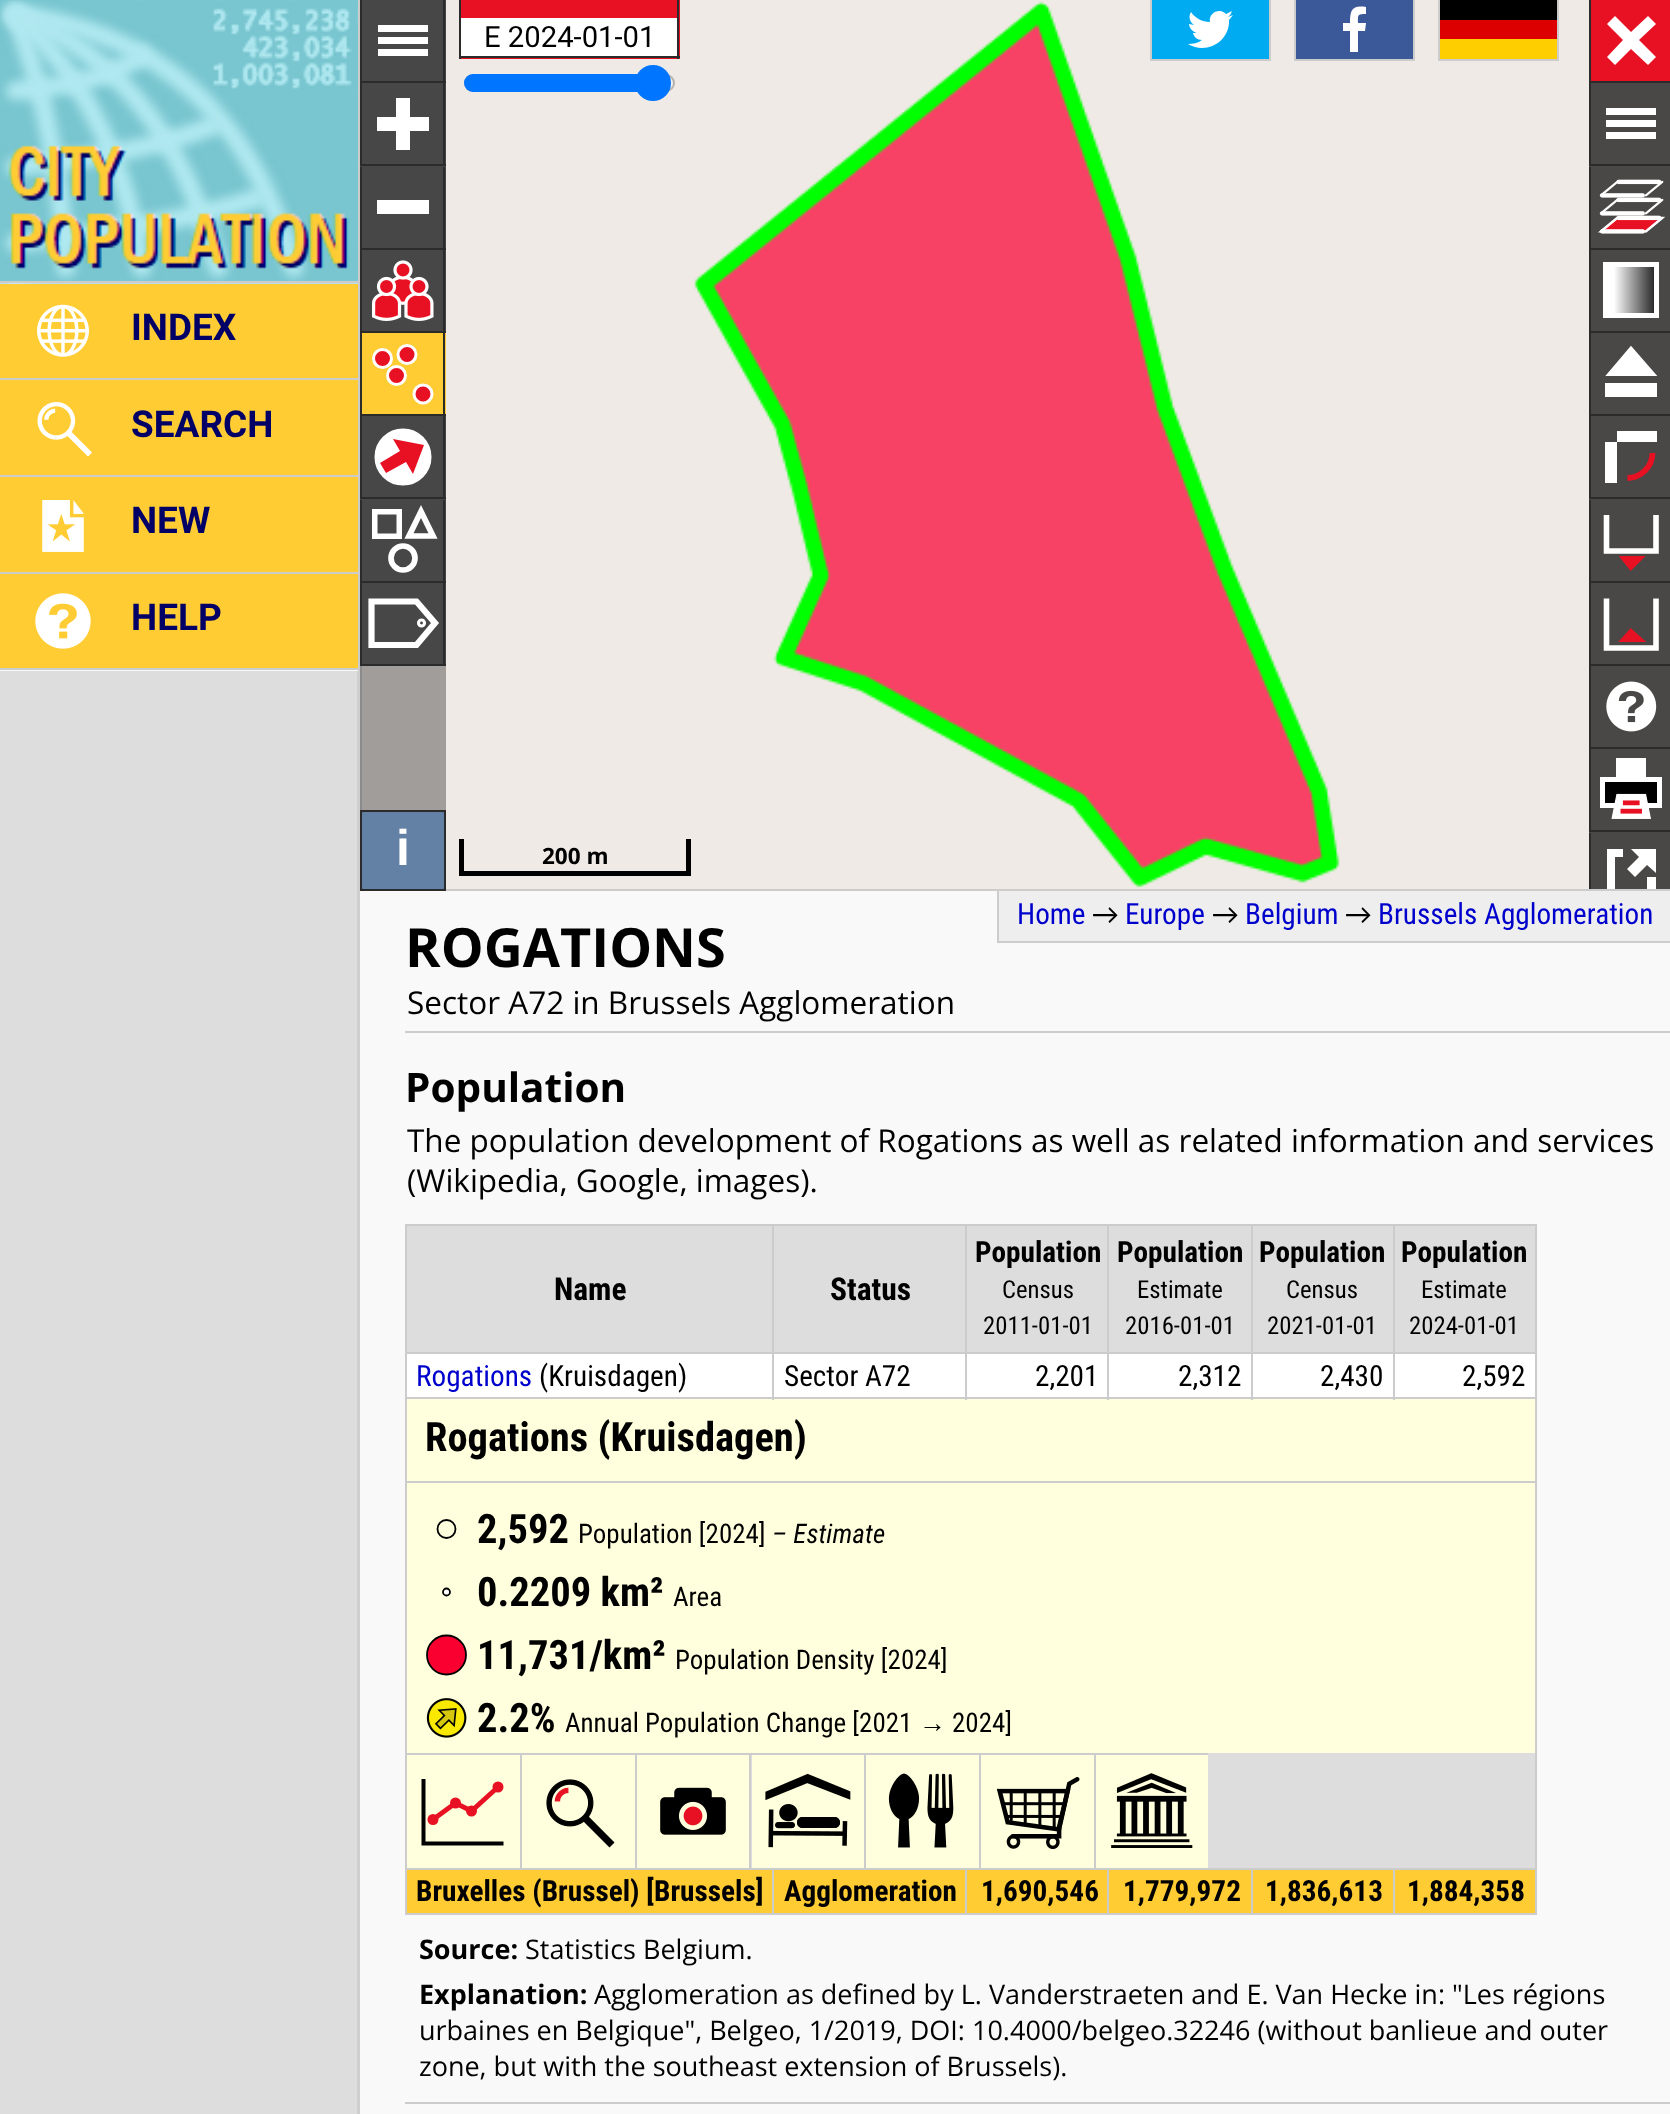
(async () => {
  const canvas = document.querySelector("canvas");
  canvas.width = 1670;
  canvas.height = 2114;
  const ctx = canvas.getContext("2d");
  ctx.miterLimit = 4;
  ctx.fontKerning = "normal";
  async function loadImage(src) {
    const img = new Image();
    img.src = src;
    await img.decode();
    return img;
  }
  let gradient, path;

  ctx.fillStyle = "#f9f9f9";
  ctx.fillRect(0, 0, 1670, 2114);
  ctx.drawImage(await loadImage("img/1.png"), 0, 0, 358, 284);
  for (const [x, y, w, h, color] of [
    [358, 0, 2, 671, "#cccccc"],
    [0, 281, 360, 2, "#cccccc"],
    [0, 284, 358, 94, "#ffcc33"],
    [0, 378, 360, 2, "#cccccc"],
  ]) {
    ctx.fillStyle = color;
    ctx.fillRect(x, y, w, h);
  }
  ctx.drawImage(await loadImage("img/2.png"), 37, 304, 52, 53);
  ctx.fillStyle = "#ffcc33";
  ctx.fillRect(0, 380, 358, 95);
  ctx.fillStyle = "#cccccc";
  ctx.fillRect(0, 475, 360, 2);
  ctx.drawImage(await loadImage("img/3.png"), 37, 402, 55, 55);
  ctx.fillStyle = "#ffcc33";
  ctx.fillRect(0, 477, 358, 95);
  ctx.fillStyle = "#cccccc";
  ctx.fillRect(0, 572, 360, 2);
  ctx.drawImage(await loadImage("img/4.png"), 42, 500, 42, 52);
  ctx.fillStyle = "#ffcc33";
  ctx.fillRect(0, 574, 358, 94);
  ctx.fillStyle = "#cccccc";
  ctx.fillRect(0, 668, 360, 2);
  ctx.drawImage(await loadImage("img/5.png"), 35, 593, 56, 56);
  ctx.fillStyle = "#f0eae6";
  ctx.fillRect(362, 0, 1227, 889);
  ctx.strokeStyle = "#cccccc";
  ctx.lineWidth = 2;
  ctx.strokeRect(361, -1, 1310, 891);
  for (const [x, y, w, h, color] of [
    [360, 0, 86, 889, "rgba(43, 43, 43, 0.4)"],
    [362, 0, 84, 81, "rgba(43, 43, 43, 0.75)"],
    [360, 81, 86, 2, "#2b2b2b"],
    [360, 0, 2, 81, "#2b2b2b"],
    [378, 25, 50, 7, "#ffffff"],
    [443, 0, 2, 81, "#2b2b2b"],
    [378, 37, 50, 7, "#ffffff"],
    [378, 49, 50, 7, "#ffffff"],
    [360, 83, 86, 84, "rgba(43, 43, 43, 0.75)"],
    [360, 164, 86, 2, "#2b2b2b"],
    [360, 83, 2, 81, "#2b2b2b"],
    [377, 117, 52, 14, "#ffffff"],
    [396, 98, 14, 52, "#ffffff"],
    [443, 83, 2, 81, "#2b2b2b"],
    [362, 167, 84, 81, "rgba(43, 43, 43, 0.75)"],
    [360, 248, 86, 2, "#2b2b2b"],
    [360, 167, 2, 81, "#2b2b2b"],
    [377, 200, 52, 14, "#ffffff"],
    [443, 167, 2, 81, "#2b2b2b"],
    [362, 250, 84, 81, "rgba(43, 43, 43, 0.75)"],
    [360, 331, 86, 2, "#2b2b2b"],
    [360, 250, 2, 81, "#2b2b2b"],
  ]) {
    ctx.fillStyle = color;
    ctx.fillRect(x, y, w, h);
  }
  ctx.drawImage(await loadImage("img/6.png"), 372, 260, 62, 61);
  for (const [x, y, w, h, color] of [
    [443, 250, 2, 81, "#2b2b2b"],
    [362, 333, 84, 81, "#ffcc33"],
    [360, 414, 86, 2, "#2b2b2b"],
    [360, 333, 2, 81, "#2b2b2b"],
  ]) {
    ctx.fillStyle = color;
    ctx.fillRect(x, y, w, h);
  }
  ctx.fillStyle = "#e81123";
  ctx.beginPath();
  ctx.arc(382.5, 358.5, 9, 0, Math.PI * 2);
  ctx.fill();
  ctx.strokeStyle = "#ffffff";
  ctx.lineWidth = 3;
  ctx.stroke();
  ctx.beginPath();
  ctx.arc(407, 354.5, 9, 0, Math.PI * 2);
  ctx.fill();
  ctx.stroke();
  ctx.fillStyle = "#2b2b2b";
  ctx.fillRect(443, 333, 2, 81);
  ctx.fillStyle = "#e81123";
  ctx.beginPath();
  ctx.arc(396.5, 375.5, 9, 0, Math.PI * 2);
  ctx.fill();
  ctx.stroke();
  ctx.beginPath();
  ctx.arc(423, 394, 9, 0, Math.PI * 2);
  ctx.fill();
  ctx.stroke();
  for (const [x, y, w, h, color] of [
    [360, 416, 86, 84, "rgba(43, 43, 43, 0.75)"],
    [360, 497, 86, 2, "#2b2b2b"],
    [360, 416, 2, 81, "#2b2b2b"],
  ]) {
    ctx.fillStyle = color;
    ctx.fillRect(x, y, w, h);
  }
  ctx.fillStyle = "#ffffff";
  ctx.beginPath();
  ctx.arc(403, 457, 27.5, 0, Math.PI * 2);
  ctx.fill();
  ctx.lineWidth = 2;
  ctx.stroke();
  ctx.fillStyle = "#2b2b2b";
  ctx.fillRect(443, 416, 2, 81);
  ctx.fillStyle = "#e81123";
  path = new Path2D("M380 463L400 451L393 439L424 445L413 474L406 462L386 473Z");
  ctx.fill(path);
  for (const [x, y, w, h, color] of [
    [362, 500, 84, 81, "rgba(43, 43, 43, 0.75)"],
    [360, 581, 86, 2, "#2b2b2b"],
    [360, 500, 2, 81, "#2b2b2b"],
  ]) {
    ctx.fillStyle = color;
    ctx.fillRect(x, y, w, h);
  }
  ctx.lineWidth = 5.5;
  ctx.strokeRect(374.75, 511.75, 24.5, 24.5);
  path = new Path2D("M409 536H433L421 511.5Z");
  ctx.lineWidth = 5.7;
  ctx.stroke(path);
  ctx.fillRect(443, 500, 2, 81);
  ctx.beginPath();
  ctx.arc(403, 558, 12, 0, Math.PI * 2);
  ctx.stroke();
  for (const [x, y, w, h, color] of [
    [362, 583, 84, 81, "rgba(43, 43, 43, 0.75)"],
    [360, 664, 86, 2, "#2b2b2b"],
    [360, 583, 2, 81, "#2b2b2b"],
  ]) {
    ctx.fillStyle = color;
    ctx.fillRect(x, y, w, h);
  }
  path = new Path2D("M371.5 601.5H416.5L435 623L416.5 645H371.5Z");
  ctx.lineWidth = 6.2;
  ctx.stroke(path);
  ctx.fillRect(443, 583, 2, 81);
  ctx.beginPath();
  ctx.arc(421.5, 623, 3, 0, Math.PI * 2);
  ctx.lineWidth = 3.1;
  ctx.stroke();
  for (const [x, y, w, h, color] of [
    [461, 0, 219, 59, "#e81123"],
    [677, 0, 2, 59, "#2b2b2b"],
    [459, 56, 221, 2, "#2b2b2b"],
    [459, 0, 2, 59, "#2b2b2b"],
    [461, 18, 216, 38, "#ffffff"],
  ]) {
    ctx.fillStyle = color;
    ctx.fillRect(x, y, w, h);
  }
  ctx.fillStyle = "#efefef";
  ctx.beginPath();
  ctx.roundRect(465, 75, 209, 16, 8);
  ctx.fill();
  ctx.strokeStyle = "#b2b2b2";
  ctx.lineWidth = 2;
  ctx.stroke();
  ctx.fillStyle = "#0075ff";
  ctx.beginPath();
  ctx.roundRect(464, 74, 189, 18, [9, 0, 0, 9]);
  ctx.fill();
  ctx.beginPath();
  ctx.arc(653, 83, 18, 0, Math.PI * 2);
  ctx.fill();
  for (const [x, y, w, h, color] of [
    [1591, 0, 79, 81, "#e81123"],
    [1589, 81, 81, 2, "#2b2b2b"],
    [1589, 0, 2, 81, "#2b2b2b"],
  ]) {
    ctx.fillStyle = color;
    ctx.fillRect(x, y, w, h);
  }
  ctx.fillStyle = "#ffffff";
  path = new Path2D("M1615 16L1631 32L1648 16L1656 24L1639 40L1656 57L1648 65L1631 49L1615 65L1607 57L1623 40L1607 24Z");
  ctx.fill(path);
  for (const [x, y, w, h, color] of [
    [1589, 83, 81, 84, "#494847"],
    [1589, 164, 81, 2, "#2b2b2b"],
    [1589, 83, 2, 81, "#2b2b2b"],
    [1606, 108, 50, 7, "#ffffff"],
    [1606, 120, 50, 7, "#ffffff"],
    [1606, 132, 50, 7, "#ffffff"],
    [1591, 167, 79, 81, "#494847"],
    [1589, 248, 81, 2, "#2b2b2b"],
    [1589, 167, 2, 81, "#2b2b2b"],
  ]) {
    ctx.fillStyle = color;
    ctx.fillRect(x, y, w, h);
  }
  ctx.drawImage(await loadImage("img/7.png"), 1598, 179, 68, 55);
  for (const [x, y, w, h, color] of [
    [1591, 250, 79, 81, "#494847"],
    [1589, 331, 81, 2, "#2b2b2b"],
    [1589, 250, 2, 81, "#2b2b2b"],
  ]) {
    ctx.fillStyle = color;
    ctx.fillRect(x, y, w, h);
  }
  gradient = ctx.createLinearGradient(1606, 265, 1662, 265);
  gradient.addColorStop(0.14, "#ffffff");
  gradient.addColorStop(1, "#000000");
  ctx.fillStyle = gradient;
  ctx.fillRect(1608, 267, 46, 46);
  ctx.strokeStyle = "#ffffff";
  ctx.lineWidth = 5;
  ctx.strokeRect(1605.5, 264.5, 51, 51);
  for (const [x, y, w, h, color] of [
    [1591, 333, 79, 81, "#494847"],
    [1589, 414, 81, 2, "#2b2b2b"],
    [1589, 333, 2, 81, "#2b2b2b"],
  ]) {
    ctx.fillStyle = color;
    ctx.fillRect(x, y, w, h);
  }
  ctx.fillStyle = "#ffffff";
  path = new Path2D("M1611 374H1652L1631 350Z");
  ctx.fill(path);
  path = new Path2D("M1610.5 373.5H1652L1631 349.5Z");
  ctx.lineWidth = 4.8;
  ctx.stroke(path);
  for (const [x, y, w, h, color] of [
    [1605, 383, 52, 14, "#ffffff"],
    [1589, 416, 81, 84, "#494847"],
    [1589, 497, 81, 2, "#2b2b2b"],
    [1589, 416, 2, 81, "#2b2b2b"],
    [1617, 431, 40, 11, "#ffffff"],
    [1605, 442, 12, 41, "#ffffff"],
  ]) {
    ctx.fillStyle = color;
    ctx.fillRect(x, y, w, h);
  }
  path = new Path2D("M1627.5 478C1641 478 1652.5 466.5 1652.5 453M1652.5 453C1652.5 466.5 1641 478 1627.5 478");
  ctx.strokeStyle = "#e81123";
  ctx.lineWidth = 5.8;
  ctx.stroke(path);
  for (const [x, y, w, h, color] of [
    [1591, 500, 79, 81, "#494847"],
    [1589, 581, 81, 2, "#2b2b2b"],
    [1589, 500, 2, 81, "#2b2b2b"],
  ]) {
    ctx.fillStyle = color;
    ctx.fillRect(x, y, w, h);
  }
  path = new Path2D("M1606.5 515V551H1656V515");
  ctx.strokeStyle = "#ffffff";
  ctx.lineWidth = 5.6;
  ctx.stroke(path);
  path = new Path2D("M1631 565L1627 560H1636Z");
  ctx.strokeStyle = "#e81123";
  ctx.lineWidth = 7.9;
  ctx.stroke(path);
  for (const [x, y, w, h, color] of [
    [1591, 583, 79, 81, "#494847"],
    [1589, 664, 81, 2, "#2b2b2b"],
    [1589, 583, 2, 81, "#2b2b2b"],
  ]) {
    ctx.fillStyle = color;
    ctx.fillRect(x, y, w, h);
  }
  path = new Path2D("M1606.5 598.5V648H1656V598.5");
  ctx.strokeStyle = "#ffffff";
  ctx.lineWidth = 5.6;
  ctx.stroke(path);
  path = new Path2D("M1631 633.5L1627 638H1636Z");
  ctx.strokeStyle = "#e81123";
  ctx.lineWidth = 7.9;
  ctx.stroke(path);
  for (const [x, y, w, h, color] of [
    [1591, 666, 79, 81, "#494847"],
    [1589, 747, 81, 2, "#2b2b2b"],
    [1589, 666, 2, 81, "#2b2b2b"],
  ]) {
    ctx.fillStyle = color;
    ctx.fillRect(x, y, w, h);
  }
  ctx.drawImage(await loadImage("img/8.png"), 1606, 681, 51, 51);
  for (const [x, y, w, h, color] of [
    [1589, 749, 81, 84, "#494847"],
    [1589, 830, 81, 2, "#2b2b2b"],
    [1589, 749, 2, 81, "#2b2b2b"],
  ]) {
    ctx.fillStyle = color;
    ctx.fillRect(x, y, w, h);
  }
  ctx.drawImage(await loadImage("img/9.png"), 1600, 758, 62, 61);
  ctx.fillStyle = "#494847";
  ctx.fillRect(1591, 833, 79, 56);
  ctx.fillStyle = "#2b2b2b";
  ctx.fillRect(1589, 833, 2, 56);
  ctx.save();
  ctx.beginPath();
  ctx.rect(1591, 833, 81, 56);
  ctx.clip();
  ctx.fillStyle = "#ffffff";
  path = new Path2D("M1647 889H1615V857H1623V849H1607V897H1656V877H1647ZM1631 849L1639 857L1627 869L1635 877L1647 865L1656 873V849Z");
  ctx.fill(path);
  ctx.restore();
  ctx.fillStyle = "rgba(255, 255, 255, 0.4)";
  ctx.beginPath();
  ctx.roundRect(360, 810, 86, 81, 9);
  ctx.fill();
  ctx.fillStyle = "rgba(0, 60, 136, 0.5)";
  ctx.beginPath();
  ctx.rect(361, 811, 84, 79);
  ctx.fill();
  ctx.strokeStyle = "#2b2b2b";
  ctx.lineWidth = 2;
  ctx.stroke();
  for (const [x, y, w, h, color] of [
    [686, 839, 5, 36, "#000000"],
    [459, 871, 232, 5, "#000000"],
    [459, 839, 5, 36, "#000000"],
  ]) {
    ctx.fillStyle = color;
    ctx.fillRect(x, y, w, h);
  }
  ctx.drawImage(await loadImage("img/10.png"), 694, 1, 646, 887);
  for (const [x, y, w, h, color] of [
    [1269, 0, 2, 61, "#cccccc"],
    [1150, 59, 121, 2, "#cccccc"],
    [1150, 0, 2, 61, "#cccccc"],
    [1152, 0, 117, 59, "#00abf1"],
  ]) {
    ctx.fillStyle = color;
    ctx.fillRect(x, y, w, h);
  }
  ctx.fillStyle = "#ffffff";
  path = new Path2D("M1233 15L1228 17C1230 15 1231 14 1232 11L1226 14C1220 7 1208 13 1210 22C1202 22 1195 18 1191 12C1188 17 1190 22 1194 25L1189 24C1189 28 1193 32 1197 33H1193C1194 37 1197 40 1202 40C1198 43 1193 44 1188 44C1206 55 1230 42 1229 20Z");
  ctx.fill(path);
  for (const [x, y, w, h, color] of [
    [1413, 0, 2, 61, "#cccccc"],
    [1294, 59, 121, 2, "#cccccc"],
    [1294, 0, 2, 61, "#cccccc"],
    [1296, 0, 117, 59, "#3b5998"],
  ]) {
    ctx.fillStyle = color;
    ctx.fillRect(x, y, w, h);
  }
  ctx.fillStyle = "#ffffff";
  path = new Path2D("M1358 52V31H1365L1366 23H1358C1358 15 1357 14 1366 14V7C1352 5 1350 10 1350 23H1343V31H1350V52Z");
  ctx.fill(path);
  for (const [x, y, w, h, color] of [
    [1557, 0, 2, 61, "#cccccc"],
    [1438, 59, 121, 2, "#cccccc"],
    [1438, 0, 2, 61, "#cccccc"],
    [1440, 0, 117, 20, "#000000"],
    [1440, 20, 117, 19, "#dd0000"],
    [1440, 39, 117, 20, "#ffce00"],
    [0, 671, 357, 1443, "#dddddd"],
    [357, 671, 3, 1443, "#cfcfcf"],
    [999, 891, 671, 50, "#eeeeee"],
    [997, 941, 673, 2, "#cccccc"],
    [997, 891, 2, 52, "#cccccc"],
    [405, 1031, 1265, 2, "#cccccc"],
    [405, 1224, 1132, 2, "#cccccc"],
    [1535, 1224, 2, 691, "#cccccc"],
    [405, 1913, 1132, 2, "#cccccc"],
    [405, 1224, 2, 691, "#cccccc"],
    [407, 1226, 365, 126, "#dddddd"],
    [774, 1226, 333, 126, "#dddddd"],
    [1393, 1352, 144, 2, "#cccccc"],
    [407, 1399, 1128, 354, "#ffffdd"],
    [405, 1397, 1132, 2, "#cccccc"],
    [1393, 1352, 2, 48, "#cccccc"],
    [1251, 1352, 144, 2, "#cccccc"],
    [1251, 1352, 2, 48, "#cccccc"],
    [1107, 1352, 146, 2, "#cccccc"],
    [1107, 1352, 2, 48, "#cccccc"],
    [965, 1352, 144, 2, "#cccccc"],
    [774, 1354, 333, 43, "#ffffff"],
    [965, 1352, 2, 48, "#cccccc"],
    [772, 1352, 196, 2, "#cccccc"],
    [772, 1352, 2, 48, "#cccccc"],
    [405, 1352, 369, 2, "#cccccc"],
    [772, 1224, 2, 131, "#cccccc"],
    [965, 1224, 2, 131, "#cccccc"],
    [1109, 1226, 142, 126, "#dddddd"],
    [1107, 1224, 2, 131, "#cccccc"],
    [1253, 1226, 140, 126, "#dddddd"],
    [1251, 1224, 2, 131, "#cccccc"],
    [1395, 1226, 140, 126, "#dddddd"],
    [1393, 1224, 2, 131, "#cccccc"],
    [407, 1354, 365, 43, "#ffffff"],
    [1109, 1354, 142, 43, "#ffffff"],
    [1253, 1354, 140, 43, "#ffffff"],
    [1395, 1354, 140, 43, "#ffffff"],
    [407, 1481, 1128, 2, "#cccccc"],
  ]) {
    ctx.fillStyle = color;
    ctx.fillRect(x, y, w, h);
  }
  ctx.beginPath();
  ctx.arc(446.5, 1529, 9, 0, Math.PI * 2);
  ctx.strokeStyle = "#000000";
  ctx.lineWidth = 1.8;
  ctx.stroke();
  ctx.fillStyle = "#ffffff";
  ctx.beginPath();
  ctx.arc(446.5, 1592, 3.5, 0, Math.PI * 2);
  ctx.fill();
  ctx.stroke();
  ctx.fillStyle = "#f90031";
  ctx.beginPath();
  ctx.arc(446.5, 1655, 19.5, 0, Math.PI * 2);
  ctx.fill();
  ctx.stroke();
  ctx.drawImage(await loadImage("img/11.png"), 426, 1698, 41, 40);
  for (const [x, y, w, h, color] of [
    [751, 1753, 784, 115, "#dddddd"],
    [407, 1753, 801, 2, "#cccccc"],
    [407, 1755, 113, 113, "#ffffdd"],
    [520, 1753, 2, 115, "#cccccc"],
    [522, 1755, 113, 113, "#ffffdd"],
    [635, 1753, 2, 115, "#cccccc"],
    [637, 1755, 112, 113, "#ffffdd"],
    [749, 1753, 2, 115, "#cccccc"],
    [752, 1755, 112, 113, "#ffffdd"],
    [864, 1753, 2, 115, "#cccccc"],
    [866, 1755, 113, 113, "#ffffdd"],
    [979, 1753, 2, 115, "#cccccc"],
    [981, 1755, 113, 113, "#ffffdd"],
    [1094, 1753, 2, 115, "#cccccc"],
    [1096, 1755, 112, 113, "#ffffdd"],
  ]) {
    ctx.fillStyle = color;
    ctx.fillRect(x, y, w, h);
  }
  path = new Path2D("M423.5 1779V1843.5H503.5");
  ctx.lineWidth = 4;
  ctx.stroke(path);
  ctx.drawImage(await loadImage("img/12.png"), 546, 1779, 69, 69);
  ctx.drawImage(await loadImage("img/13.png"), 765, 1773, 86, 75);
  ctx.drawImage(await loadImage("img/14.png"), 888, 1773, 66, 75);
  ctx.drawImage(await loadImage("img/15.png"), 996, 1777, 84, 73);
  ctx.drawImage(await loadImage("img/16.png"), 1111, 1773, 82, 75);
  path = new Path2D("M433 1819.5L455.5 1803L471.5 1811L498 1787");
  ctx.strokeStyle = "#e81123";
  ctx.lineWidth = 4.8;
  ctx.stroke(path);
  ctx.fillStyle = "#e81123";
  ctx.beginPath();
  ctx.arc(498, 1787, 5.5, 0, Math.PI * 2);
  ctx.fill();
  ctx.drawImage(await loadImage("img/17.png"), 660, 1787, 66, 48);
  ctx.beginPath();
  ctx.arc(455.5, 1803, 5.5, 0, Math.PI * 2);
  ctx.fill();
  ctx.beginPath();
  ctx.arc(471.5, 1811, 5.5, 0, Math.PI * 2);
  ctx.fill();
  ctx.beginPath();
  ctx.arc(433, 1819.5, 5.5, 0, Math.PI * 2);
  ctx.fill();
  for (const [x, y, w, h, color] of [
    [407, 1870, 365, 43, "#ffcc33"],
    [1393, 1868, 144, 2, "#cccccc"],
    [1393, 1868, 2, 47, "#cccccc"],
    [1251, 1868, 144, 2, "#cccccc"],
    [1251, 1868, 2, 47, "#cccccc"],
    [1107, 1868, 146, 2, "#cccccc"],
    [1107, 1868, 2, 47, "#cccccc"],
    [965, 1868, 144, 2, "#cccccc"],
    [774, 1870, 333, 43, "#ffcc33"],
    [965, 1868, 2, 47, "#cccccc"],
    [772, 1868, 196, 2, "#cccccc"],
    [772, 1868, 2, 47, "#cccccc"],
    [405, 1868, 369, 2, "#cccccc"],
    [1109, 1870, 142, 43, "#ffcc33"],
    [1253, 1870, 140, 43, "#ffcc33"],
    [1395, 1870, 140, 43, "#ffcc33"],
    [405, 2102, 1265, 2, "#cccccc"],
  ]) {
    ctx.fillStyle = color;
    ctx.fillRect(x, y, w, h);
  }
  ctx.font = "bold 37px Roboto";
  ctx.fillStyle = "#000066";
  for (const [text, x, y] of [
    ["INDEX", 131, 340],
    ["SEARCH", 131, 437],
    ["NEW", 131, 533],
    ["HELP", 131, 630],
  ]) {
    ctx.fillText(text, x, y);
  }
  ctx.font = "29.25px Roboto";
  ctx.fillStyle = "#000000";
  ctx.fillText("E 2024-01-01", 484, 47);
  ctx.font = "bold 50px Liberation Sans";
  ctx.fillStyle = "#ffffff";
  ctx.fillText("i", 396, 865);
  ctx.font = "bold 22.5px Open Sans";
  ctx.fillStyle = "#000000";
  ctx.fillText("200 m", 542, 864);
  ctx.font = "29.25px Roboto Condensed";
  ctx.fillStyle = "#0000cc";
  ctx.fillText("Home", 1017, 924);
  ctx.font = "29.25px Carlito";
  ctx.fillStyle = "#000000";
  ctx.fillText("→", 1092, 924);
  ctx.font = "29.25px Roboto Condensed";
  ctx.fillStyle = "#0000cc";
  ctx.fillText("Europe", 1125, 924);
  ctx.font = "29.25px Carlito";
  ctx.fillStyle = "#000000";
  ctx.fillText("→", 1212, 924);
  ctx.font = "29.25px Roboto Condensed";
  ctx.fillStyle = "#0000cc";
  ctx.fillText("Belgium", 1245, 924);
  ctx.font = "29.25px Carlito";
  ctx.fillStyle = "#000000";
  ctx.fillText("→", 1345, 924);
  ctx.font = "29.25px Roboto Condensed";
  ctx.fillStyle = "#0000cc";
  ctx.fillText("Brussels Agglomeration", 1378, 924);
  ctx.font = "bold 54px Open Sans";
  ctx.fillStyle = "#000000";
  ctx.fillText("ROGATIONS", 405, 967);
  ctx.font = "31.5px Open Sans";
  ctx.fillText("Sector A72 in Brussels Agglomeration", 407, 1014);
  ctx.font = "bold 40.5px Open Sans";
  ctx.fillText("Population", 405, 1102);
  ctx.font = "31.5px Open Sans";
  ctx.fillText("The population development of Rogations as well as related information and services", 407, 1152);
  ctx.fillText("(Wikipedia, Google, images).", 407, 1192);
  ctx.font = "bold 31.5px Roboto Condensed";
  ctx.fillText("Name", 554, 1300);
  ctx.fillText("Status", 830, 1300);
  ctx.font = "bold 29.25px Roboto Condensed";
  ctx.fillText("Population", 975, 1262);
  ctx.font = "24.75px Roboto Condensed";
  ctx.fillText("Census", 1002, 1298);
  ctx.fillText("2011-01-01", 983, 1334);
  ctx.font = "bold 29.25px Roboto Condensed";
  ctx.fillText("Population", 1117, 1262);
  ctx.font = "24.75px Roboto Condensed";
  ctx.fillText("Estimate", 1137, 1298);
  ctx.fillText("2016-01-01", 1125, 1334);
  ctx.font = "bold 29.25px Roboto Condensed";
  ctx.fillText("Population", 1259, 1262);
  ctx.font = "24.75px Roboto Condensed";
  ctx.fillText("Census", 1286, 1298);
  ctx.fillText("2021-01-01", 1267, 1334);
  ctx.font = "bold 29.25px Roboto Condensed";
  ctx.fillText("Population", 1401, 1262);
  ctx.font = "24.75px Roboto Condensed";
  ctx.fillText("Estimate", 1421, 1298);
  ctx.fillText("2024-01-01", 1409, 1334);
  ctx.font = "29.25px Roboto Condensed";
  ctx.fillStyle = "#0000cc";
  ctx.fillText("Rogations", 416, 1386);
  ctx.fillStyle = "#000000";
  for (const [text, x, y] of [
    ["(Kruisdagen)", 539, 1386],
    ["Sector A72", 784, 1386],
    ["2,201", 1035, 1386],
    ["2,312", 1178, 1386],
    ["2,430", 1320, 1386],
    ["2,592", 1462, 1386],
  ]) {
    ctx.fillText(text, x, y);
  }
  ctx.font = "bold 40.5px Roboto Condensed";
  ctx.fillText("Rogations (Kruisdagen)", 425, 1451);
  ctx.fillText("2,592", 477, 1543);
  ctx.font = "27px Roboto Condensed";
  ctx.fillText("Population [2024]", 578, 1543);
  ctx.font = "italic 27px Roboto Condensed";
  ctx.fillText("– Estimate", 772, 1543);
  ctx.font = "bold 40.5px Roboto Condensed";
  ctx.fillText("0.2209 km²", 477, 1606);
  ctx.font = "27px Roboto Condensed";
  ctx.fillText("Area", 673, 1606);
  ctx.font = "bold 40.5px Roboto Condensed";
  ctx.fillText("11,731/km²", 477, 1669);
  ctx.font = "27px Roboto Condensed";
  ctx.fillText("Population Density [2024]", 675, 1669);
  ctx.font = "bold 40.5px Roboto Condensed";
  ctx.fillText("2.2%", 477, 1732);
  ctx.font = "27px Roboto Condensed";
  ctx.fillText("Annual Population Change [2021", 565, 1732);
  ctx.font = "27px Liberation Sans";
  ctx.fillText("→", 919, 1732);
  ctx.font = "27px Roboto Condensed";
  ctx.fillText("2024]", 952, 1732);
  ctx.font = "bold 29.25px Roboto Condensed";
  for (const [text, x, y] of [
    ["Bruxelles (Brussel) [Brussels]", 416, 1901],
    ["Agglomeration", 784, 1901],
    ["1,690,546", 981, 1901],
    ["1,779,972", 1123, 1901],
    ["1,836,613", 1265, 1901],
    ["1,884,358", 1407, 1901],
  ]) {
    ctx.fillText(text, x, y);
  }
  ctx.font = "bold 27px Open Sans";
  ctx.fillText("Source:", 419, 1959);
  ctx.font = "27px Open Sans";
  ctx.fillText("Statistics Belgium.", 525, 1959);
  ctx.font = "bold 27px Open Sans";
  ctx.fillText("Explanation:", 419, 2004);
  ctx.font = "27px Open Sans";
  for (const [text, x, y] of [
    ["Agglomeration as defined by L. Vanderstraeten and E. Van Hecke in: \"Les régions", 594, 2004],
    ["urbaines en Belgique\", Belgeo, 1/2019, DOI: 10.4000/belgeo.32246 (without banlieue and outer", 419, 2040],
    ["zone, but with the southeast extension of Brussels).", 419, 2076],
  ]) {
    ctx.fillText(text, x, y);
  }
})();
